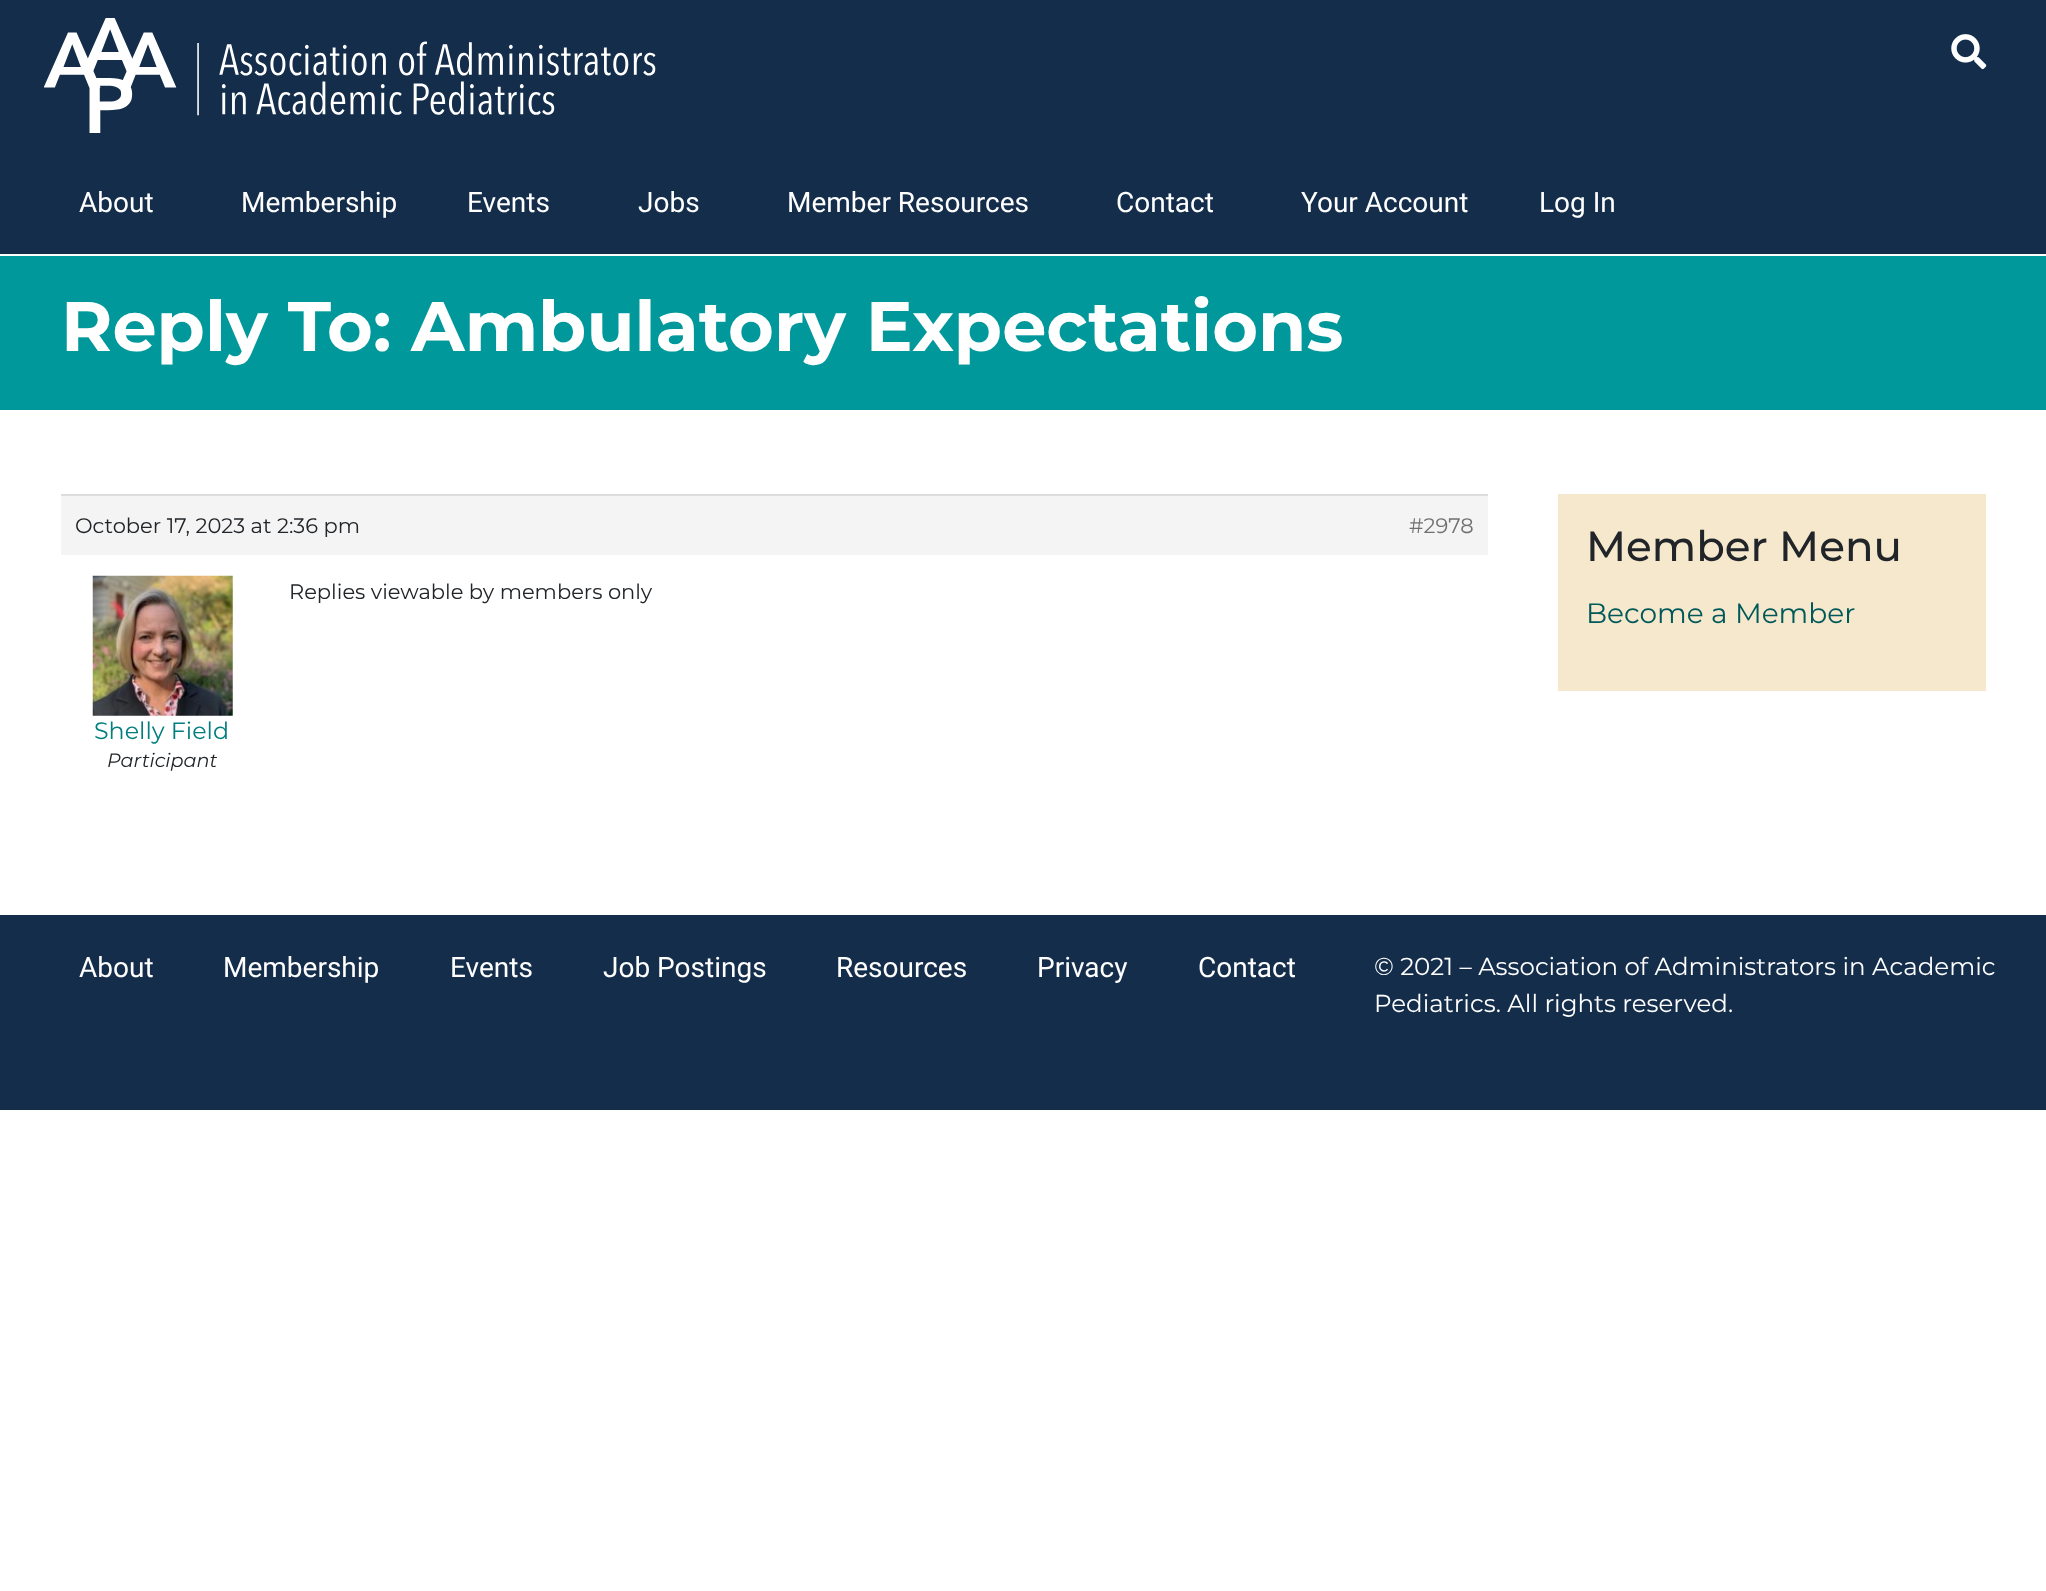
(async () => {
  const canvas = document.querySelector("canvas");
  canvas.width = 2046;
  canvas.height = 1591;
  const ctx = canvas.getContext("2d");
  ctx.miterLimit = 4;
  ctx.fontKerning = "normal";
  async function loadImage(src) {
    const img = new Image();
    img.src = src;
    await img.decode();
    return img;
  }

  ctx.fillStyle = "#ffffff";
  ctx.fillRect(0, 0, 2046, 1591);
  ctx.fillStyle = "#132d4b";
  ctx.fillRect(0, 0, 2046, 254);
  ctx.drawImage(await loadImage("img/1.png"), 44, 18, 612, 115);
  ctx.drawImage(await loadImage("img/2.png"), 1951, 34, 36, 36);
  for (const [x, y, w, h, color] of [
    [0, 256, 2046, 154, "#00989a"],
    [61, 496, 1427, 59, "#f4f4f4"],
    [61, 494, 1427, 2, "#dddddd"],
  ]) {
    ctx.fillStyle = color;
    ctx.fillRect(x, y, w, h);
  }
  ctx.drawImage(await loadImage("img/3.png"), 92, 575, 141, 141);
  ctx.fillStyle = "#f5e8cc";
  ctx.fillRect(1558, 494, 428, 197);
  ctx.fillStyle = "#132d4b";
  ctx.fillRect(0, 915, 2046, 195);
  ctx.font = "28px Roboto";
  ctx.fillStyle = "#ffffff";
  for (const [text, x, y] of [
    ["About", 79, 212],
    ["Membership", 241, 212],
    ["Events", 467, 212],
    ["Jobs", 638, 212],
    ["Member Resources", 787, 212],
    ["Contact", 1116, 212],
    ["Your Account", 1301, 212],
    ["Log In", 1539, 212],
  ]) {
    ctx.fillText(text, x, y);
  }
  ctx.font = "bold 70px Montserrat";
  ctx.fillText("Reply To: Ambulatory Expectations", 61, 351);
  ctx.font = "21px Montserrat";
  ctx.fillStyle = "#212529";
  ctx.fillText("October 17, 2023 at 2:36 pm", 75, 533);
  ctx.fillStyle = "#707070";
  ctx.fillText("#2978", 1409, 533);
  ctx.fillStyle = "#212529";
  ctx.fillText("Replies viewable by members only", 289, 599);
  ctx.font = "23.75px Montserrat";
  ctx.fillStyle = "#007e80";
  ctx.fillText("Shelly Field", 94, 739);
  ctx.font = "italic 19.25px Montserrat";
  ctx.fillStyle = "#212529";
  ctx.fillText("Participant", 107, 767);
  ctx.font = "500 42px Montserrat";
  ctx.fillText("Member Menu", 1586, 561);
  ctx.font = "28px Montserrat";
  ctx.fillStyle = "#005859";
  ctx.fillText("Become a Member", 1586, 623);
  ctx.font = "28px Roboto";
  ctx.fillStyle = "#ffffff";
  for (const [text, x, y] of [
    ["About", 79, 977],
    ["Membership", 223, 977],
    ["Events", 450, 977],
    ["Job Postings", 603, 977],
    ["Resources", 836, 977],
    ["Privacy", 1037, 977],
    ["Contact", 1198, 977],
  ]) {
    ctx.fillText(text, x, y);
  }
  ctx.font = "24.5px Montserrat";
  ctx.fillText("© 2021 – Association of Administrators in Academic", 1374, 975);
  ctx.fillText("Pediatrics. All rights reserved.", 1374, 1012);
})();
